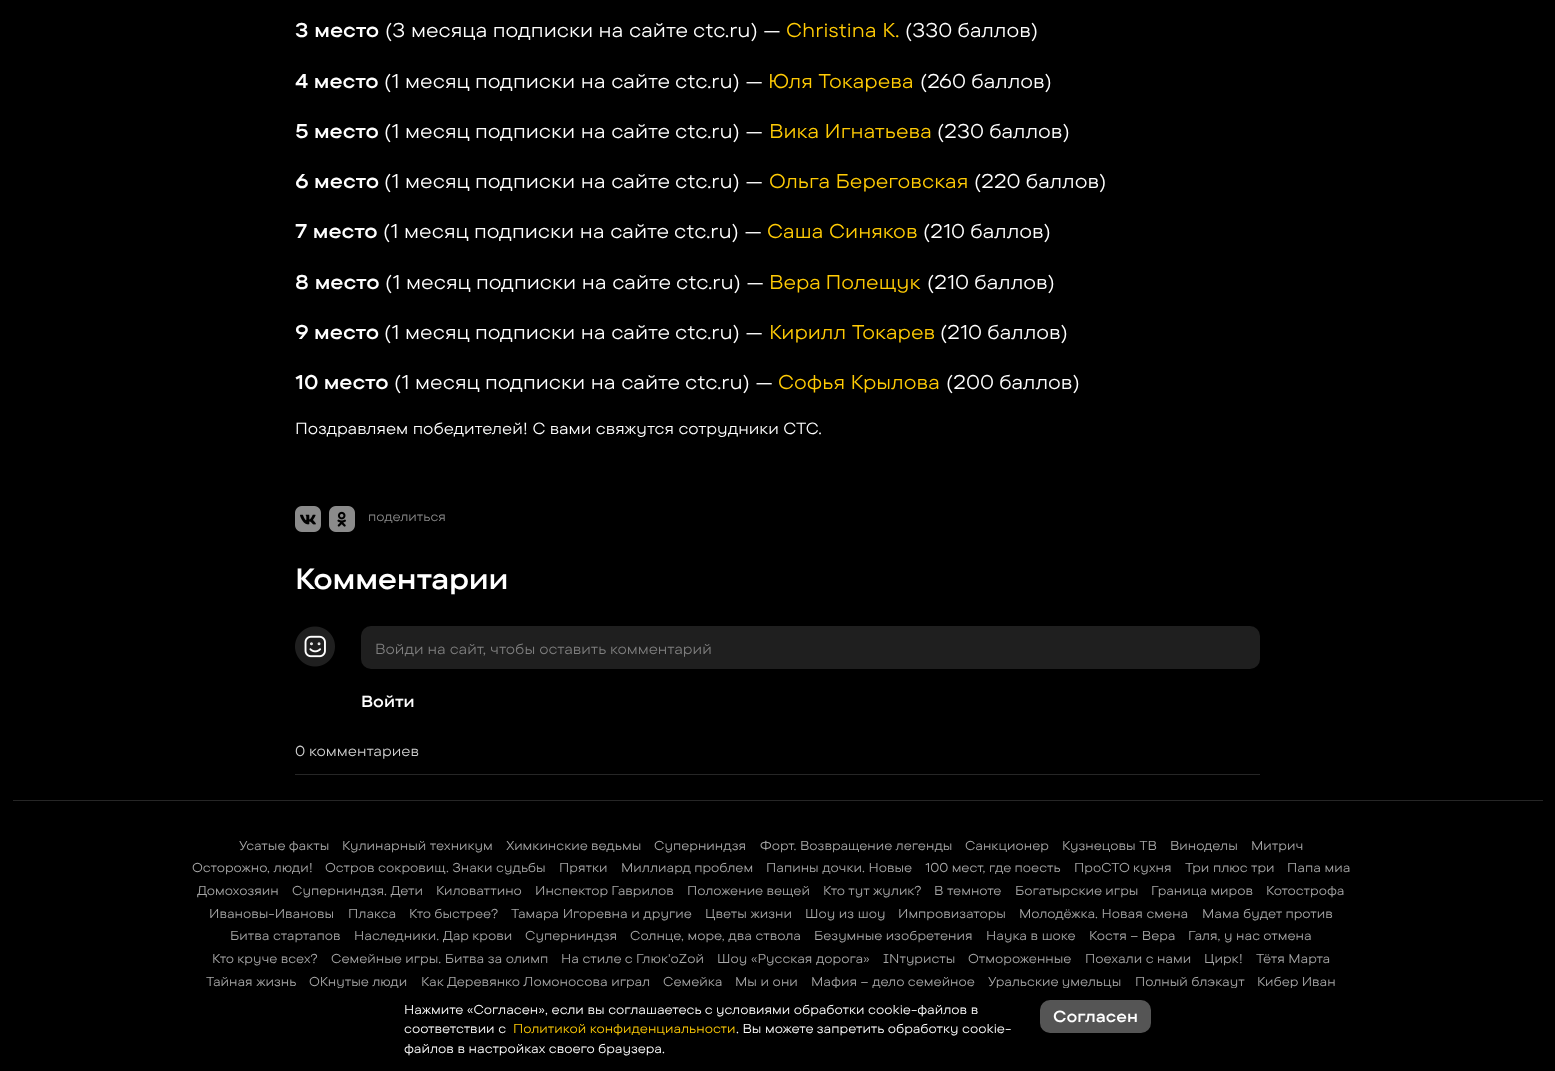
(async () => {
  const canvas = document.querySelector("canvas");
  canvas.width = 1555;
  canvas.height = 1071;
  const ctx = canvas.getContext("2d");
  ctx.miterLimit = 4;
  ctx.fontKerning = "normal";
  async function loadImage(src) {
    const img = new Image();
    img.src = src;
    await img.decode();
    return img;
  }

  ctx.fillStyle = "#000000";
  ctx.fillRect(0, 0, 1555, 1071);
  ctx.drawImage(await loadImage("img/1.png"), 295, 506, 26, 26);
  ctx.drawImage(await loadImage("img/2.png"), 329, 506, 26, 26);
  ctx.drawImage(await loadImage("img/3.png"), 295, 626, 40, 41);
  ctx.fillStyle = "#1f1f1f";
  ctx.beginPath();
  ctx.roundRect(361, 626, 899, 43, 10);
  ctx.fill();
  ctx.fillStyle = "#262626";
  ctx.fillRect(295, 774, 965, 1);
  ctx.fillRect(13, 800, 1530, 1);
  ctx.fillStyle = "#555555";
  ctx.beginPath();
  ctx.roundRect(1040, 1000, 111, 33, 10);
  ctx.fill();
  ctx.font = "600 20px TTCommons";
  ctx.fillStyle = "#ffffff";
  ctx.fillText("3 место", 295, 37);
  ctx.font = "20px TTCommons";
  ctx.fillText("(3 месяца подписки на сайте сtc.ru) —", 385, 37);
  ctx.fillStyle = "#ffcb05";
  ctx.fillText("Christina K.", 786, 37);
  ctx.fillStyle = "#ffffff";
  ctx.fillText("(330 баллов)", 905, 37);
  ctx.font = "600 20px TTCommons";
  ctx.fillText("4 место", 295, 88);
  ctx.font = "20px TTCommons";
  ctx.fillText("(1 месяц подписки на сайте сtc.ru) —", 384, 88);
  ctx.fillStyle = "#ffcb05";
  ctx.fillText("Юля Токарева", 768, 88);
  ctx.fillStyle = "#ffffff";
  ctx.fillText("(260 баллов)", 920, 88);
  ctx.font = "600 20px TTCommons";
  ctx.fillText("5 место", 295, 138);
  ctx.font = "20px TTCommons";
  ctx.fillText("(1 месяц подписки на сайте сtc.ru) —", 384, 138);
  ctx.fillStyle = "#ffcb05";
  ctx.fillText("Вика Игнатьева", 769, 138);
  ctx.fillStyle = "#ffffff";
  ctx.fillText("(230 баллов)", 937, 138);
  ctx.font = "600 20px TTCommons";
  ctx.fillText("6 место", 295, 188);
  ctx.font = "20px TTCommons";
  ctx.fillText("(1 месяц подписки на сайте сtc.ru) —", 384, 188);
  ctx.fillStyle = "#ffcb05";
  ctx.fillText("Ольга Береговская", 769, 188);
  ctx.fillStyle = "#ffffff";
  ctx.fillText("(220 баллов)", 974, 188);
  ctx.font = "600 20px TTCommons";
  ctx.fillText("7 место", 295, 238);
  ctx.font = "20px TTCommons";
  ctx.fillText("(1 месяц подписки на сайте сtc.ru) —", 383, 238);
  ctx.fillStyle = "#ffcb05";
  ctx.fillText("Саша Синяков", 767, 238);
  ctx.fillStyle = "#ffffff";
  ctx.fillText("(210 баллов)", 923, 238);
  ctx.font = "600 20px TTCommons";
  ctx.fillText("8 место", 295, 289);
  ctx.font = "20px TTCommons";
  ctx.fillText("(1 месяц подписки на сайте сtc.ru) —", 385, 289);
  ctx.wordSpacing = "-1px";
  ctx.fillStyle = "#ffcb05";
  ctx.fillText("Вера Полещук", 769, 289);
  ctx.wordSpacing = "0px";
  ctx.fillStyle = "#ffffff";
  ctx.fillText("(210 баллов)", 927, 289);
  ctx.font = "600 20px TTCommons";
  ctx.fillText("9 место", 295, 339);
  ctx.font = "20px TTCommons";
  ctx.fillText("(1 месяц подписки на сайте сtc.ru) —", 384, 339);
  ctx.fillStyle = "#ffcb05";
  ctx.fillText("Кирилл Токарев", 769, 339);
  ctx.fillStyle = "#ffffff";
  ctx.fillText("(210 баллов)", 940, 339);
  ctx.font = "600 20px TTCommons";
  ctx.fillText("10 место", 295, 389);
  ctx.font = "20px TTCommons";
  ctx.fillText("(1 месяц подписки на сайте сtc.ru) —", 394, 389);
  ctx.fillStyle = "#ffcb05";
  ctx.fillText("Софья Крылова", 778, 389);
  ctx.fillStyle = "#ffffff";
  ctx.fillText("(200 баллов)", 946, 389);
  ctx.font = "16.2px TTCommons";
  ctx.fillText("Поздравляем победителей! С вами свяжутся сотрудники СТС.", 295, 434);
  ctx.font = "12.95px TTCommons";
  ctx.fillStyle = "#8b8b8b";
  ctx.fillText("поделиться", 368, 521);
  ctx.letterSpacing = "-0.25px";
  ctx.font = "600 29.25px TTCommons";
  ctx.fillStyle = "#ffffff";
  ctx.fillText("Комментарии", 295, 589);
  ctx.letterSpacing = "0px";
  ctx.font = "14.6px TTCommons";
  ctx.fillStyle = "#7f7f7f";
  ctx.fillText("Войди на сайт, чтобы оставить комментарий", 375, 654);
  ctx.font = "600 16.2px TTCommons";
  ctx.fillStyle = "#ffffff";
  ctx.fillText("Войти", 361, 707);
  ctx.font = "14.6px TTCommons";
  ctx.fillStyle = "#d0d0d0";
  ctx.fillText("0", 295, 756);
  ctx.fillText("комментариев", 309, 756);
  ctx.font = "12.95px TTCommons";
  ctx.fillStyle = "#a7a7a7";
  for (const [text, x, y] of [
    ["Усатые факты", 239, 850],
    ["Кулинарный техникум", 342, 850],
    ["Химкинские ведьмы", 506, 850],
    ["Суперниндзя", 654, 850],
    ["Форт. Возвращение легенды", 760, 850],
    ["Санкционер", 965, 850],
    ["Кузнецовы ТВ", 1062, 850],
    ["Виноделы", 1170, 850],
    ["Митрич", 1251, 850],
    ["Осторожно, люди!", 192, 872],
    ["Остров сокровищ. Знаки судьбы", 325, 872],
    ["Прятки", 559, 872],
    ["Миллиард проблем", 621, 872],
    ["Папины дочки. Новые", 766, 872],
    ["100 мест, где поесть", 925, 872],
    ["ПроСТО кухня", 1074, 872],
    ["Три плюс три", 1185, 872],
    ["Папа миа", 1287, 872],
    ["Домохозяин", 197, 895],
    ["Суперниндзя. Дети", 292, 895],
    ["Киловаттино", 436, 895],
    ["Инспектор Гаврилов", 535, 895],
    ["Положение вещей", 687, 895],
    ["Кто тут жулик?", 823, 895],
    ["В темноте", 934, 895],
    ["Богатырские игры", 1015, 895],
    ["Граница миров", 1151, 895],
    ["Котострофа", 1266, 895],
    ["Ивановы-Ивановы", 209, 918],
    ["Плакса", 348, 918],
    ["Кто быстрее?", 409, 918],
    ["Тамара Игоревна и другие", 511, 918],
    ["Цветы жизни", 705, 918],
    ["Шоу из шоу", 805, 918],
    ["Импровизаторы", 898, 918],
    ["Молодёжка. Новая смена", 1019, 918],
    ["Мама будет против", 1202, 918],
    ["Битва стартапов", 230, 940],
    ["Наследники. Дар крови", 354, 940],
    ["Суперниндзя", 525, 940],
    ["Солнце, море, два ствола", 630, 940],
    ["Безумные изобретения", 814, 940],
    ["Наука в шоке", 986, 940],
    ["Костя – Вера", 1089, 940],
    ["Галя, у нас отмена", 1188, 940],
    ["Кто круче всех?", 212, 963],
    ["Семейные игры. Битва за олимп", 331, 963],
    ["На стиле с Глюк'oZой", 561, 963],
    ["Шоу «Русская дорога»", 717, 963],
    ["INтуристы", 883, 963],
    ["Отмороженные", 968, 963],
    ["Поехали с нами", 1085, 963],
    ["Цирк!", 1204, 963],
    ["Тётя Марта", 1256, 963],
    ["Тайная жизнь", 206, 986],
    ["ОКнутые люди", 309, 986],
    ["Как Деревянко Ломоносова играл", 421, 986],
    ["Семейка", 663, 986],
    ["Мы и они", 735, 986],
    ["Мафия – дело семейное", 811, 986],
    ["Уральские умельцы", 988, 986],
    ["Полный блэкаут", 1135, 986],
    ["Кибер Иван", 1257, 986],
  ]) {
    ctx.fillText(text, x, y);
  }
  ctx.fillStyle = "#000000";
  ctx.fillRect(339, 988, 954, 1);
  ctx.fillStyle = "#ffffff";
  ctx.fillText("Нажмите «Согласен», если вы соглашаетесь с условиями обработки cookie-файлов в", 404, 1014);
  ctx.fillText("соответствии с", 404, 1033);
  ctx.fillStyle = "#ffcb05";
  ctx.fillText("Политикой конфиденциальности", 513, 1033);
  ctx.fillStyle = "#ffffff";
  ctx.fillText(". Вы можете запретить обработку cookie-", 736, 1033);
  ctx.fillText("файлов в настройках своего браузера.", 404, 1053);
  ctx.font = "600 16.2px TTCommons";
  ctx.fillText("Согласен", 1053, 1022);
})();
